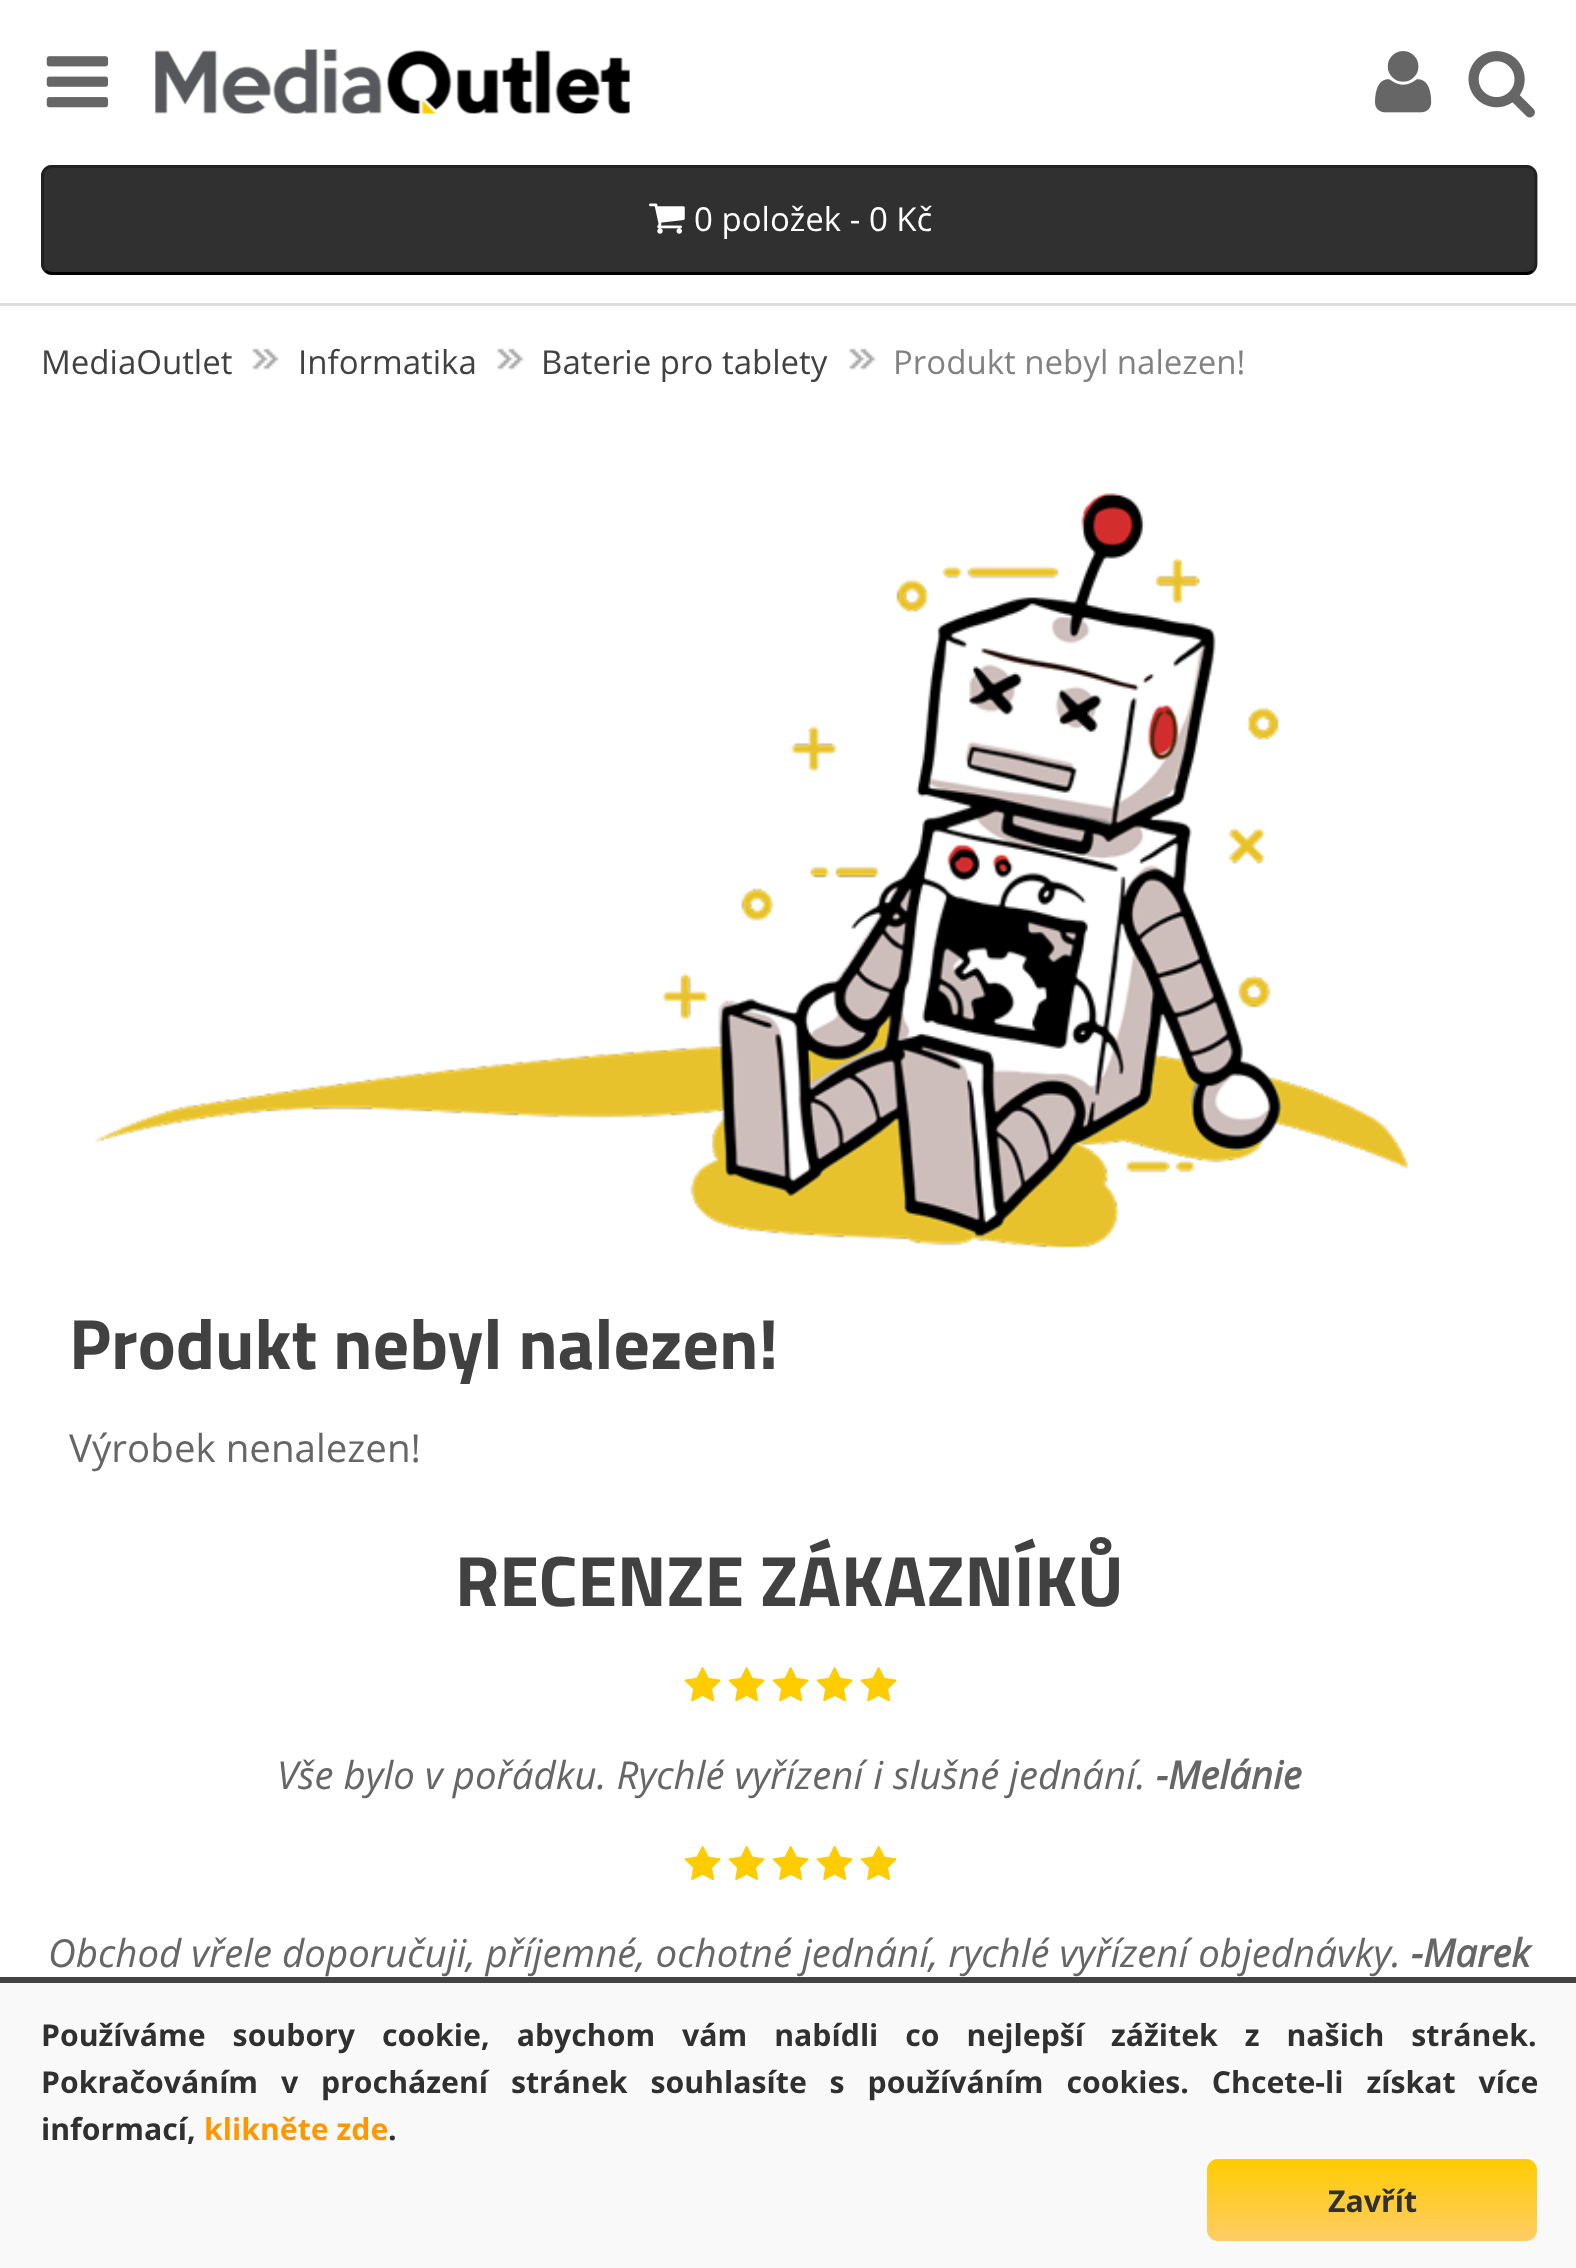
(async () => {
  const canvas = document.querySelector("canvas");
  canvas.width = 1576;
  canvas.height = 2268;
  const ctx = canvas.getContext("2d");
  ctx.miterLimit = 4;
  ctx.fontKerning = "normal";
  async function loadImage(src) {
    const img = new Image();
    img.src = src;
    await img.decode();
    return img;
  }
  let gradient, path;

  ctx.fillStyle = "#ffffff";
  ctx.fillRect(0, 0, 1576, 2268);
  ctx.fillStyle = "#dddddd";
  ctx.fillRect(0, 303, 1576, 3);
  ctx.drawImage(await loadImage("img/1.png"), 46, 56, 63, 52);
  ctx.drawImage(await loadImage("img/2.png"), 155, 49, 475, 65);
  ctx.drawImage(await loadImage("img/3.png"), 1375, 51, 57, 62);
  ctx.drawImage(await loadImage("img/4.png"), 1468, 51, 67, 67);
  ctx.fillStyle = "#303030";
  ctx.beginPath();
  ctx.roundRect(41, 165, 1496, 110, 11);
  ctx.fill();
  path = new Path2D("M1533 271C1531.5 272.5 1529 273.5 1526 273.5H52C49.5 273.5 47 272.5 45.5 271");
  ctx.strokeStyle = "#000000";
  ctx.lineWidth = 2.8;
  ctx.stroke(path);
  path = new Path2D("M45.5 271C43.5 269 42.5 266.5 42.5 264V176C42.5 173.5 43.5 171 45.5 169C47 167.5 49.5 166.5 52 166.5H1526C1529 166.5 1531.5 167.5 1533 169C1535 171 1536 173.5 1536 176V264C1536 266.5 1535 269 1533 271");
  ctx.strokeStyle = "#222222";
  ctx.stroke(path);
  ctx.drawImage(await loadImage("img/5.png"), 649, 203, 36, 31);
  ctx.drawImage(await loadImage("img/6.png"), 252, 348, 27, 22);
  ctx.drawImage(await loadImage("img/7.png"), 497, 348, 27, 22);
  ctx.drawImage(await loadImage("img/8.png"), 849, 348, 27, 22);
  ctx.drawImage(await loadImage("img/9.png"), 95, 493, 1314, 756);
  ctx.drawImage(await loadImage("img/10.png"), 684, 1667, 37, 35);
  ctx.drawImage(await loadImage("img/10.png"), 728, 1667, 37, 35);
  ctx.drawImage(await loadImage("img/10.png"), 772, 1667, 37, 35);
  ctx.drawImage(await loadImage("img/10.png"), 816, 1667, 37, 35);
  ctx.drawImage(await loadImage("img/10.png"), 860, 1667, 37, 35);
  ctx.drawImage(await loadImage("img/11.png"), 684, 1846, 37, 34);
  ctx.drawImage(await loadImage("img/11.png"), 728, 1846, 37, 34);
  ctx.drawImage(await loadImage("img/11.png"), 772, 1846, 37, 34);
  ctx.drawImage(await loadImage("img/11.png"), 816, 1846, 37, 34);
  ctx.drawImage(await loadImage("img/11.png"), 860, 1846, 37, 34);
  ctx.fillStyle = "#f9f9f9";
  ctx.fillRect(0, 1983, 1576, 285);
  ctx.fillStyle = "#434343";
  ctx.fillRect(0, 1977, 1576, 6);
  gradient = ctx.createLinearGradient(1372, 2159, 1372, 2241);
  gradient.addColorStop(0, "#ffcc00");
  gradient.addColorStop(1, "#ffcc66");
  ctx.fillStyle = gradient;
  ctx.beginPath();
  ctx.roundRect(1207, 2159, 330, 82, 11);
  ctx.fill();
  ctx.font = "33px Open Sans";
  ctx.fillStyle = "#ffffff";
  ctx.fillText("0 položek - 0 Kč", 694, 231);
  ctx.fillStyle = "#414141";
  for (const [text, x, y] of [
    ["MediaOutlet", 41, 374],
    ["Informatika", 298, 374],
    ["Baterie pro tablety", 541, 374],
  ]) {
    ctx.fillText(text, x, y);
  }
  ctx.fillStyle = "#828282";
  ctx.fillText("Produkt nebyl nalezen!", 893, 374);
  ctx.font = "bold 71.5px Titillium Web";
  ctx.fillStyle = "#414141";
  ctx.fillText("Produkt nebyl nalezen!", 69, 1369);
  ctx.font = "38.5px Open Sans";
  ctx.fillStyle = "#666666";
  ctx.fillText("Výrobek nenalezen!", 69, 1462);
  ctx.font = "bold 71.5px Titillium Web";
  ctx.fillStyle = "#414141";
  ctx.fillText("RECENZE ZÁKAZNÍKŮ", 455, 1606);
  ctx.font = "italic 38.5px Open Sans";
  ctx.fillStyle = "#666666";
  ctx.fillText("Vše bylo v pořádku. Rychlé vyřízení i slušné jednání.", 277, 1789);
  ctx.font = "italic bold 38.5px Open Sans";
  ctx.fillText("-Melánie", 1156, 1789);
  ctx.font = "italic 38.5px Open Sans";
  ctx.fillText("Obchod vřele doporučuji, příjemné, ochotné jednání, rychlé vyřízení objednávky.", 48, 1967);
  ctx.font = "italic bold 38.5px Open Sans";
  ctx.fillText("-Marek", 1411, 1967);
  ctx.wordSpacing = "19.1px";
  ctx.font = "bold 30.25px Open Sans";
  ctx.fillStyle = "#303030";
  ctx.fillText("Používáme soubory cookie, abychom vám nabídli co nejlepší zážitek z našich stránek.", 41, 2046);
  ctx.wordSpacing = "15px";
  ctx.fillText("Pokračováním v procházení stránek souhlasíte s používáním cookies. Chcete-li získat více", 41, 2093);
  ctx.wordSpacing = "0px";
  ctx.fillText("informací,", 41, 2140);
  ctx.fillStyle = "#ff9800";
  ctx.fillText("klikněte zde", 204, 2140);
  ctx.fillStyle = "#303030";
  ctx.fillText(".", 388, 2140);
  ctx.fillText("Zavřít", 1328, 2212);
})();
